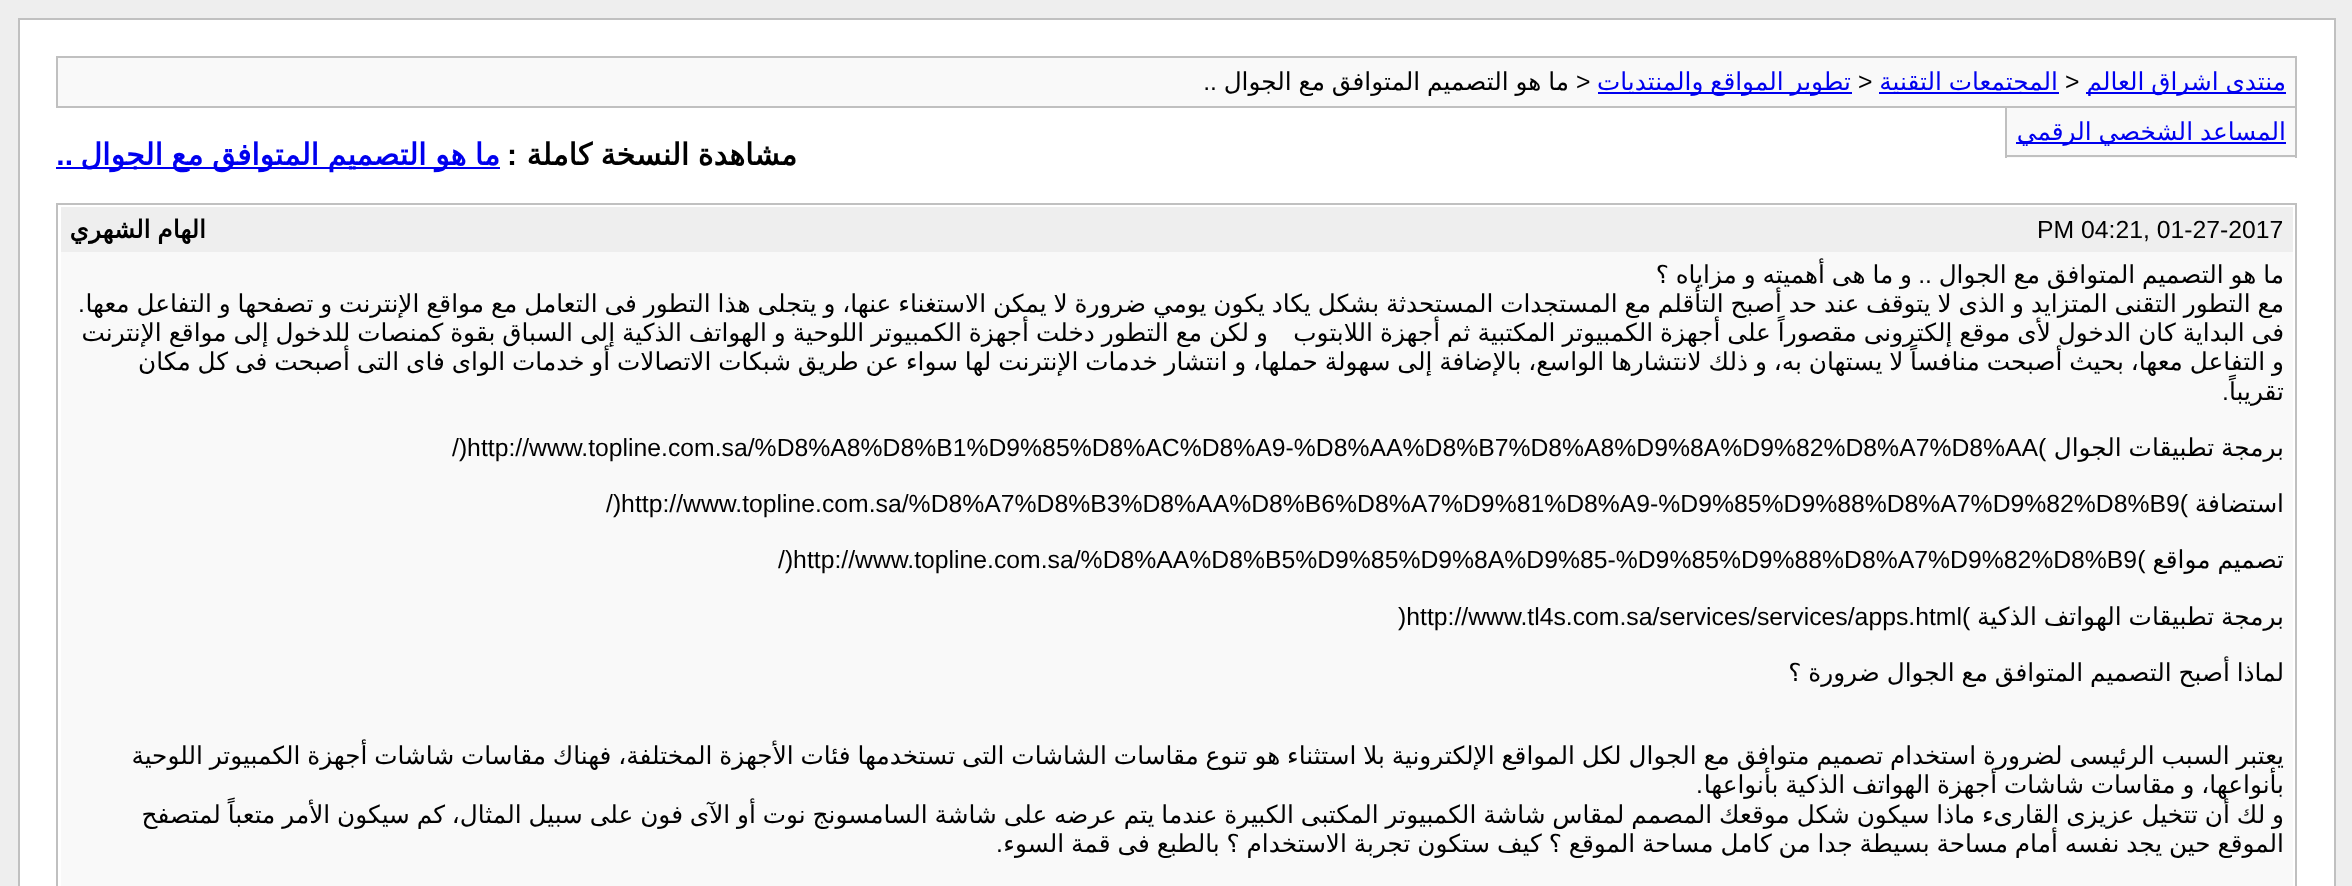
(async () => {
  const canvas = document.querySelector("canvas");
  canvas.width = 2352;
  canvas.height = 886;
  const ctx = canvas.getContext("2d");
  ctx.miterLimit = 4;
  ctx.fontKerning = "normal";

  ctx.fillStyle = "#eeeeee";
  ctx.fillRect(0, 0, 2352, 886);
  ctx.fillStyle = "#ffffff";
  ctx.beginPath();
  ctx.rect(19, 19, 2316, 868);
  ctx.fill();
  ctx.strokeStyle = "#c0c0c0";
  ctx.lineWidth = 2;
  ctx.stroke();
  ctx.fillStyle = "#f9f9f9";
  ctx.beginPath();
  ctx.rect(57, 57, 2239, 50);
  ctx.fill();
  ctx.stroke();
  for (const [x, y, w, h, color] of [
    [2086, 92, 200, 2, "#0000ee"],
    [1879, 92, 180, 2, "#0000ee"],
    [1598, 92, 254, 2, "#0000ee"],
    [2007, 108, 288, 50, "#f9f9f9"],
    [2295, 108, 2, 50, "#c0c0c0"],
    [2005, 155, 292, 2, "#c0c0c0"],
    [2005, 108, 2, 50, "#c0c0c0"],
    [2016, 142, 270, 2, "#0000ee"],
    [56, 167, 444, 2, "#0000ee"],
  ]) {
    ctx.fillStyle = color;
    ctx.fillRect(x, y, w, h);
  }
  ctx.strokeRect(57, 204, 2239, 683);
  ctx.fillStyle = "#eeeeee";
  ctx.fillRect(61, 207, 2232, 45);
  ctx.fillStyle = "#f9f9f9";
  ctx.fillRect(61, 252, 2232, 634);
  ctx.wordSpacing = "-1px";
  ctx.direction = "rtl";
  ctx.font = "24.75px DejaVu Sans";
  ctx.fillStyle = "#0000ee";
  ctx.fillText("منتدى اشراق العالم", 2286, 90);
  ctx.wordSpacing = "0px";
  ctx.direction = "ltr";
  ctx.font = "24.75px Liberation Sans";
  ctx.fillStyle = "#000000";
  ctx.fillText(">", 2065, 90);
  ctx.wordSpacing = "-1px";
  ctx.direction = "rtl";
  ctx.font = "24.75px DejaVu Sans";
  ctx.fillStyle = "#0000ee";
  ctx.fillText("المجتمعات التقنية", 2058, 90);
  ctx.wordSpacing = "0px";
  ctx.direction = "ltr";
  ctx.font = "24.75px Liberation Sans";
  ctx.fillStyle = "#000000";
  ctx.fillText(">", 1858, 90);
  ctx.wordSpacing = "-1px";
  ctx.direction = "rtl";
  ctx.font = "24.75px DejaVu Sans";
  ctx.fillStyle = "#0000ee";
  ctx.fillText("تطوير المواقع والمنتديات", 1851, 90);
  ctx.wordSpacing = "0px";
  ctx.direction = "ltr";
  ctx.font = "24.75px Liberation Sans";
  ctx.fillStyle = "#000000";
  ctx.fillText(">", 1576, 90);
  ctx.wordSpacing = "-1px";
  ctx.direction = "rtl";
  ctx.font = "24.75px DejaVu Sans";
  ctx.fillText("ما هو التصميم المتوافق مع الجوال", 1569, 90);
  ctx.wordSpacing = "0px";
  ctx.font = "24.75px Liberation Sans";
  ctx.fillText("..", 1217, 90);
  ctx.wordSpacing = "-1px";
  ctx.font = "24.75px DejaVu Sans";
  ctx.fillStyle = "#0000ee";
  ctx.fillText("المساعد الشخصي الرقمي", 2286, 140);
  ctx.font = "bold 30px DejaVu Sans";
  ctx.fillStyle = "#000000";
  ctx.fillText("مشاهدة النسخة كاملة", 797, 165);
  ctx.wordSpacing = "0px";
  ctx.font = "bold 30px Liberation Sans";
  ctx.fillText(":", 517, 165);
  ctx.wordSpacing = "-1px";
  ctx.font = "bold 30px DejaVu Sans";
  ctx.fillStyle = "#0000ee";
  ctx.fillText("ما هو التصميم المتوافق مع الجوال", 500, 165);
  ctx.wordSpacing = "0px";
  ctx.font = "bold 30px Liberation Sans";
  ctx.fillText("..", 73, 165);
  ctx.direction = "ltr";
  ctx.font = "24.75px Liberation Sans";
  ctx.fillStyle = "#000000";
  ctx.fillText("PM 04:21, 01-27-2017", 2037, 238);
  ctx.wordSpacing = "-1px";
  ctx.direction = "rtl";
  ctx.font = "bold 24.75px DejaVu Sans";
  ctx.fillText("الهام الشهري", 206, 238);
  ctx.font = "24.75px DejaVu Sans";
  ctx.fillText("ما هو التصميم المتوافق مع الجوال", 2284, 283);
  ctx.wordSpacing = "0px";
  ctx.font = "24.75px Liberation Sans";
  ctx.fillText("..", 1932, 283);
  ctx.wordSpacing = "-1px";
  ctx.font = "24.75px DejaVu Sans";
  ctx.fillText("و ما هى أهميته و مزاياه ؟", 1912, 283);
  ctx.fillText("مع التطور التقنى المتزايد و الذى لا يتوقف عند حد أصبح التأقلم مع المستجدات المستحدثة بشكل يكاد يكون يومي ضرورة لا يمكن الاستغناء عنها، و يتجلى هذا التطور فى التعامل مع مواقع الإنترنت و تصفحها و التفاعل معها", 2284, 312);
  ctx.wordSpacing = "0px";
  ctx.font = "24.75px Liberation Sans";
  ctx.fillText(".", 85, 312);
  ctx.wordSpacing = "-0.9px";
  ctx.font = "24.75px DejaVu Sans";
  ctx.fillText("فى البداية كان الدخول لأى موقع إلكترونى مقصوراً على أجهزة الكمبيوتر المكتبية ثم أجهزة اللابتوب", 2284, 341);
  ctx.fillText("و لكن مع التطور دخلت أجهزة الكمبيوتر اللوحية و الهواتف الذكية إلى السباق بقوة كمنصات للدخول إلى مواقع الإنترنت", 1268, 341);
  ctx.wordSpacing = "-1px";
  ctx.fillText("و التفاعل معها، بحيث أصبحت منافساً لا يستهان به، و ذلك لانتشارها الواسع، بالإضافة إلى سهولة حملها، و انتشار خدمات الإنترنت لها سواء عن طريق شبكات الاتصالات أو خدمات الواى فاى التى أصبحت فى كل مكان", 2284, 370);
  ctx.wordSpacing = "0px";
  ctx.fillText("تقريباً", 2284, 400);
  ctx.font = "24.75px Liberation Sans";
  ctx.fillText(".", 2229, 400);
  ctx.wordSpacing = "-1px";
  ctx.font = "24.75px DejaVu Sans";
  ctx.fillText("برمجة تطبيقات الجوال", 2284, 456);
  ctx.wordSpacing = "0px";
  ctx.direction = "ltr";
  ctx.font = "24.75px Liberation Sans";
  ctx.fillText("/)http://www.topline.com.sa/%D8%A8%D8%B1%D9%85%D8%AC%D8%A9-%D8%AA%D8%B7%D8%A8%D9%8A%D9%82%D8%A7%D8%AA(", 452, 456);
  ctx.direction = "rtl";
  ctx.font = "24.75px DejaVu Sans";
  ctx.fillText("استضافة", 2284, 512);
  ctx.direction = "ltr";
  ctx.font = "24.75px Liberation Sans";
  ctx.fillText("/)http://www.topline.com.sa/%D8%A7%D8%B3%D8%AA%D8%B6%D8%A7%D9%81%D8%A9-%D9%85%D9%88%D8%A7%D9%82%D8%B9(", 606, 512);
  ctx.wordSpacing = "-1px";
  ctx.direction = "rtl";
  ctx.font = "24.75px DejaVu Sans";
  ctx.fillText("تصميم مواقع", 2284, 568);
  ctx.wordSpacing = "0px";
  ctx.direction = "ltr";
  ctx.font = "24.75px Liberation Sans";
  ctx.fillText("/)http://www.topline.com.sa/%D8%AA%D8%B5%D9%85%D9%8A%D9%85-%D9%85%D9%88%D8%A7%D9%82%D8%B9(", 778, 568);
  ctx.wordSpacing = "-1px";
  ctx.direction = "rtl";
  ctx.font = "24.75px DejaVu Sans";
  ctx.fillText("برمجة تطبيقات الهواتف الذكية", 2284, 625);
  ctx.wordSpacing = "0px";
  ctx.direction = "ltr";
  ctx.font = "24.75px Liberation Sans";
  ctx.fillText(")http://www.tl4s.com.sa/services/services/apps.html(", 1398, 625);
  ctx.wordSpacing = "-1px";
  ctx.direction = "rtl";
  ctx.font = "24.75px DejaVu Sans";
  for (const [text, x, y] of [
    ["لماذا أصبح التصميم المتوافق مع الجوال ضرورة ؟", 2284, 681],
    ["يعتبر السبب الرئيسى لضرورة استخدام تصميم متوافق مع الجوال لكل المواقع الإلكترونية بلا استثناء هو تنوع مقاسات الشاشات التى تستخدمها فئات الأجهزة المختلفة، فهناك مقاسات شاشات أجهزة الكمبيوتر اللوحية", 2284, 764],
    ["بأنواعها، و مقاسات شاشات أجهزة الهواتف الذكية بأنواعها", 2284, 793],
  ]) {
    ctx.fillText(text, x, y);
  }
  ctx.wordSpacing = "0px";
  ctx.font = "24.75px Liberation Sans";
  ctx.fillText(".", 1703, 793);
  ctx.wordSpacing = "-1px";
  ctx.font = "24.75px DejaVu Sans";
  ctx.fillText("و لك أن تتخيل عزيزى القارىء ماذا سيكون شكل موقعك المصمم لمقاس شاشة الكمبيوتر المكتبى الكبيرة عندما يتم عرضه على شاشة السامسونج نوت أو الآى فون على سبيل المثال، كم سيكون الأمر متعباً لمتصفح", 2284, 823);
  ctx.fillText("الموقع حين يجد نفسه أمام مساحة بسيطة جدا من كامل مساحة الموقع ؟ كيف ستكون تجربة الاستخدام ؟ بالطبع فى قمة السوء", 2284, 852);
  ctx.wordSpacing = "0px";
  ctx.font = "24.75px Liberation Sans";
  ctx.fillText(".", 1003, 852);
})();
